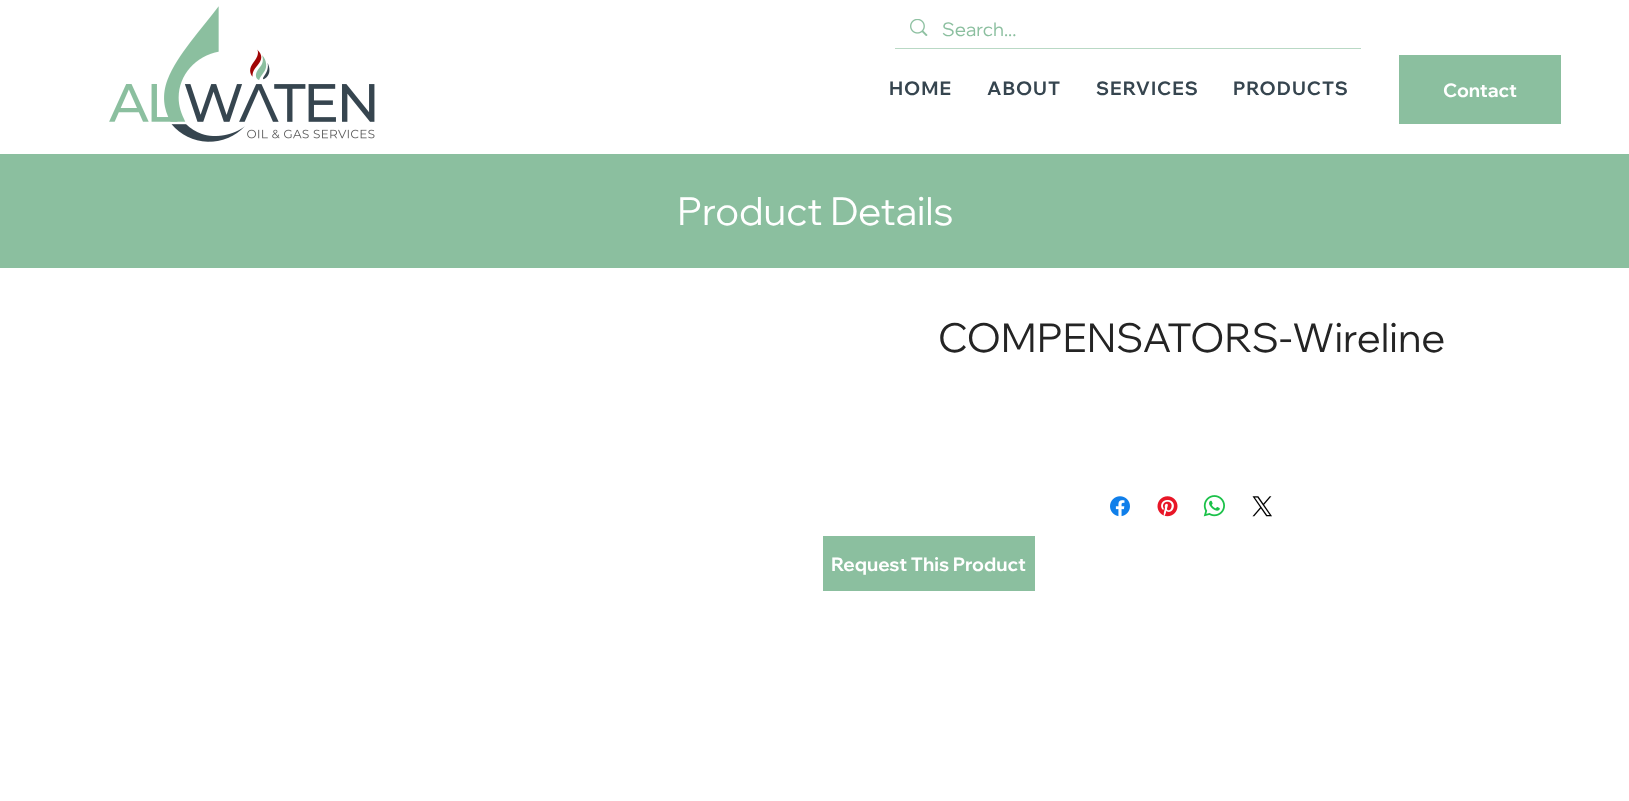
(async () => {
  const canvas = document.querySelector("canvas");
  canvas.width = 1629;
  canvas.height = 801;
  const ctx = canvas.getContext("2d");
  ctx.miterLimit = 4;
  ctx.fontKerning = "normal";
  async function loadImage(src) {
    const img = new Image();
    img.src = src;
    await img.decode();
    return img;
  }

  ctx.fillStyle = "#ffffff";
  ctx.fillRect(0, 0, 1629, 801);
  ctx.drawImage(await loadImage("img/1.png"), 109, 6, 266, 136);
  ctx.fillStyle = "#b9d9c5";
  ctx.fillRect(895, 48, 466, 1);
  ctx.drawImage(await loadImage("img/2.png"), 910, 19, 18, 17);
  ctx.fillStyle = "#8bbf9f";
  ctx.fillRect(1399, 55, 162, 69);
  ctx.fillRect(0, 154, 1629, 114);
  ctx.drawImage(await loadImage("img/3.png"), 1110, 496, 20, 21);
  ctx.drawImage(await loadImage("img/4.png"), 1157, 496, 21, 21);
  ctx.drawImage(await loadImage("img/5.png"), 1203, 495, 22, 22);
  ctx.drawImage(await loadImage("img/6.png"), 1252, 496, 20, 21);
  ctx.fillRect(823, 536, 212, 55);
  ctx.font = "18.75px Wix Madefor Display";
  ctx.fillText("Search...", 942, 36);
  ctx.letterSpacing = "1px";
  ctx.font = "bold 18.75px Wix Madefor Display";
  ctx.fillStyle = "#36454f";
  for (const [text, x, y] of [
    ["HOME", 889, 95],
    ["ABOUT", 987, 95],
    ["SERVICES", 1096, 95],
    ["PRODUCTS", 1233, 95],
  ]) {
    ctx.fillText(text, x, y);
  }
  ctx.letterSpacing = "0px";
  ctx.fillStyle = "#ffffff";
  ctx.fillText("Contact", 1443, 97);
  ctx.font = "38.75px Wix Madefor Display";
  ctx.fillText("Product Details", 677, 225);
  ctx.font = "40px Wix Madefor Display";
  ctx.fillStyle = "#242424";
  ctx.fillText("COMPENSATORS-Wireline", 938, 352);
  ctx.font = "bold 18.75px Wix Madefor Display";
  ctx.fillStyle = "#ffffff";
  ctx.fillText("Request This Product", 831, 571);
})();
